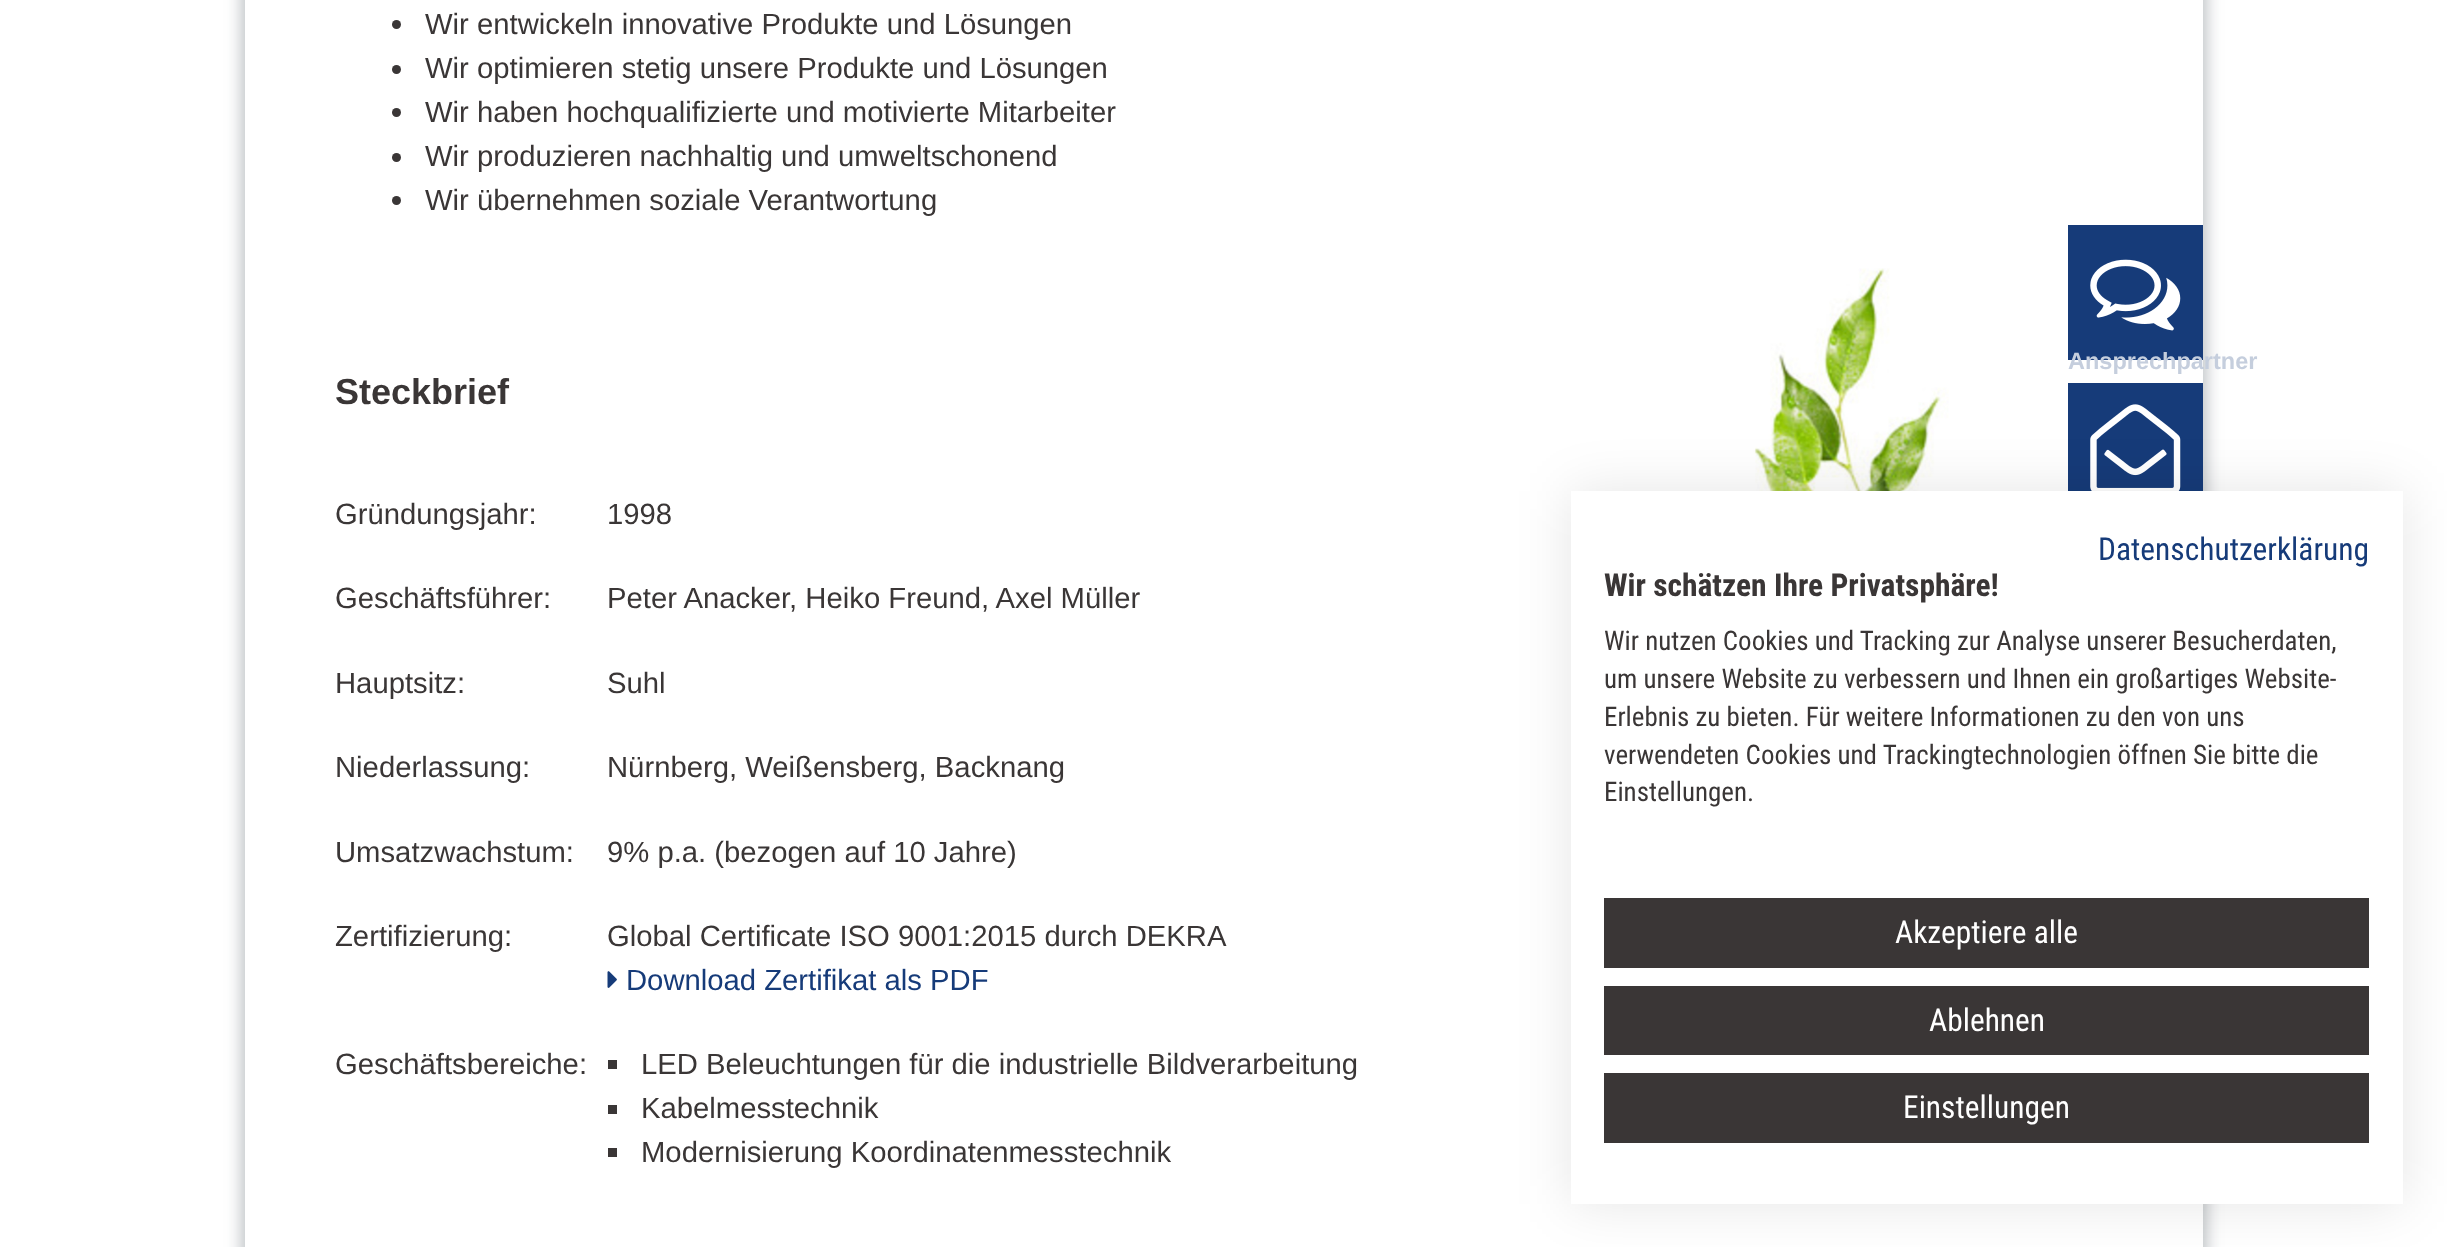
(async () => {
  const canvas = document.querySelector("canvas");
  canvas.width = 2447;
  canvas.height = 1247;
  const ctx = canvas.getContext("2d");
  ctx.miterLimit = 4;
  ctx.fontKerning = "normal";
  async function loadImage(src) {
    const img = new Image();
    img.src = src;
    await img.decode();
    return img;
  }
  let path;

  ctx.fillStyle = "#ffffff";
  ctx.fillRect(0, 0, 2447, 1247);
  ctx.save();
  path = new Path2D("M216 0H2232V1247H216ZM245-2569H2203V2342H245Z");
  ctx.clip(path, "evenodd");
  ctx.fillStyle = "#bfc3c6";
  ctx.filter = "blur(8px)";
  ctx.beginPath();
  ctx.rect(241, -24, 1966, 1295);
  ctx.fill();
  ctx.filter = "none";
  ctx.restore();
  ctx.fillStyle = "#3a3636";
  ctx.beginPath();
  ctx.arc(396.5, 24.5, 4.5, 0, Math.PI * 2);
  ctx.fill();
  ctx.beginPath();
  ctx.arc(396.5, 69.5, 4.5, 0, Math.PI * 2);
  ctx.fill();
  ctx.beginPath();
  ctx.arc(396.5, 112.5, 4.5, 0, Math.PI * 2);
  ctx.fill();
  ctx.beginPath();
  ctx.arc(396.5, 157.5, 4.5, 0, Math.PI * 2);
  ctx.fill();
  ctx.beginPath();
  ctx.arc(396.5, 200.5, 4.5, 0, Math.PI * 2);
  ctx.fill();
  ctx.fillStyle = "#163b79";
  ctx.fillRect(2068, 225, 135, 135);
  ctx.drawImage(await loadImage("img/1.png"), 2090, 259, 91, 72);
  ctx.fillRect(2068, 383, 135, 108);
  ctx.drawImage(await loadImage("img/2.png"), 2090, 404, 91, 87);
  ctx.drawImage(await loadImage("img/3.png"), 607, 971, 10, 17);
  for (const [x, y, w, h, color] of [
    [608, 1060, 9, 9, "#3a3636"],
    [608, 1105, 9, 9, "#3a3636"],
    [608, 1148, 9, 9, "#3a3636"],
  ]) {
    ctx.fillStyle = color;
    ctx.fillRect(x, y, w, h);
  }
  ctx.drawImage(await loadImage("img/4.png"), 1651, 268, 298, 223);
  ctx.fillStyle = "rgba(0, 0, 0, 0.1)";
  ctx.filter = "blur(27px)";
  ctx.beginPath();
  ctx.rect(1571, 491, 832, 713);
  ctx.fill();
  ctx.filter = "none";
  for (const [x, y, w, h, color] of [
    [1571, 491, 832, 713, "#ffffff"],
    [1604, 898, 765, 70, "#3a3636"],
    [1604, 986, 765, 69, "#3a3636"],
    [1604, 1073, 765, 70, "#3a3636"],
  ]) {
    ctx.fillStyle = color;
    ctx.fillRect(x, y, w, h);
  }
  ctx.font = "29.25px Liberation Sans";
  for (const [text, x, y] of [
    ["Wir entwickeln innovative Produkte und Lösungen", 425, 34],
    ["Wir optimieren stetig unsere Produkte und Lösungen", 425, 78],
    ["Wir haben hochqualifizierte und motivierte Mitarbeiter", 425, 122],
    ["Wir produzieren nachhaltig und umweltschonend", 425, 166],
    ["Wir übernehmen soziale Verantwortung", 425, 210],
  ]) {
    ctx.fillText(text, x, y);
  }
  ctx.font = "bold 23.5px Liberation Sans";
  ctx.fillStyle = "#c5cedd";
  ctx.fillText("Ansprechpartner", 2068, 369);
  ctx.font = "bold 36px Liberation Sans";
  ctx.fillStyle = "#3a3636";
  ctx.fillText("Steckbrief", 335, 404);
  ctx.font = "29.25px Liberation Sans";
  for (const [text, x, y] of [
    ["Gründungsjahr:", 335, 524],
    ["1998", 607, 524],
    ["Geschäftsführer:", 335, 608],
    ["Peter Anacker, Heiko Freund, Axel Müller", 607, 608],
    ["Hauptsitz:", 335, 693],
    ["Suhl", 607, 693],
    ["Niederlassung:", 335, 777],
    ["Nürnberg, Weißensberg, Backnang", 607, 777],
    ["Umsatzwachstum:", 335, 862],
    ["9% p.a. (bezogen auf 10 Jahre)", 607, 862],
    ["Zertifizierung:", 335, 946],
    ["Global Certificate ISO 9001:2015 durch DEKRA", 607, 946],
  ]) {
    ctx.fillText(text, x, y);
  }
  ctx.fillStyle = "#163b79";
  ctx.fillText("Download Zertifikat als PDF", 626, 990);
  ctx.fillStyle = "#3a3636";
  for (const [text, x, y] of [
    ["Geschäftsbereiche:", 335, 1074],
    ["LED Beleuchtungen für die industrielle Bildverarbeitung", 641, 1074],
    ["Kabelmesstechnik", 641, 1118],
    ["Modernisierung Koordinatenmesstechnik", 641, 1162],
  ]) {
    ctx.fillText(text, x, y);
  }
  ctx.font = "31.5px Roboto Condensed";
  ctx.fillStyle = "#163b79";
  ctx.fillText("Datenschutzerklärung", 2098, 560);
  ctx.font = "bold 31.5px Roboto Condensed";
  ctx.fillStyle = "#3a3636";
  ctx.fillText("Wir schätzen Ihre Privatsphäre!", 1604, 596);
  ctx.font = "27px Roboto Condensed";
  for (const [text, x, y] of [
    ["Wir nutzen Cookies und Tracking zur Analyse unserer Besucherdaten,", 1604, 650],
    ["um unsere Website zu verbessern und Ihnen ein großartiges Website-", 1604, 688],
    ["Erlebnis zu bieten. Für weitere Informationen zu den von uns", 1604, 726],
    ["verwendeten Cookies und Trackingtechnologien öffnen Sie bitte die", 1604, 764],
    ["Einstellungen.", 1604, 801],
  ]) {
    ctx.fillText(text, x, y);
  }
  ctx.font = "31.5px Roboto Condensed";
  ctx.fillStyle = "#ffffff";
  for (const [text, x, y] of [
    ["Akzeptiere alle", 1895, 943],
    ["Ablehnen", 1929, 1031],
    ["Einstellungen", 1903, 1118],
  ]) {
    ctx.fillText(text, x, y);
  }
})();
